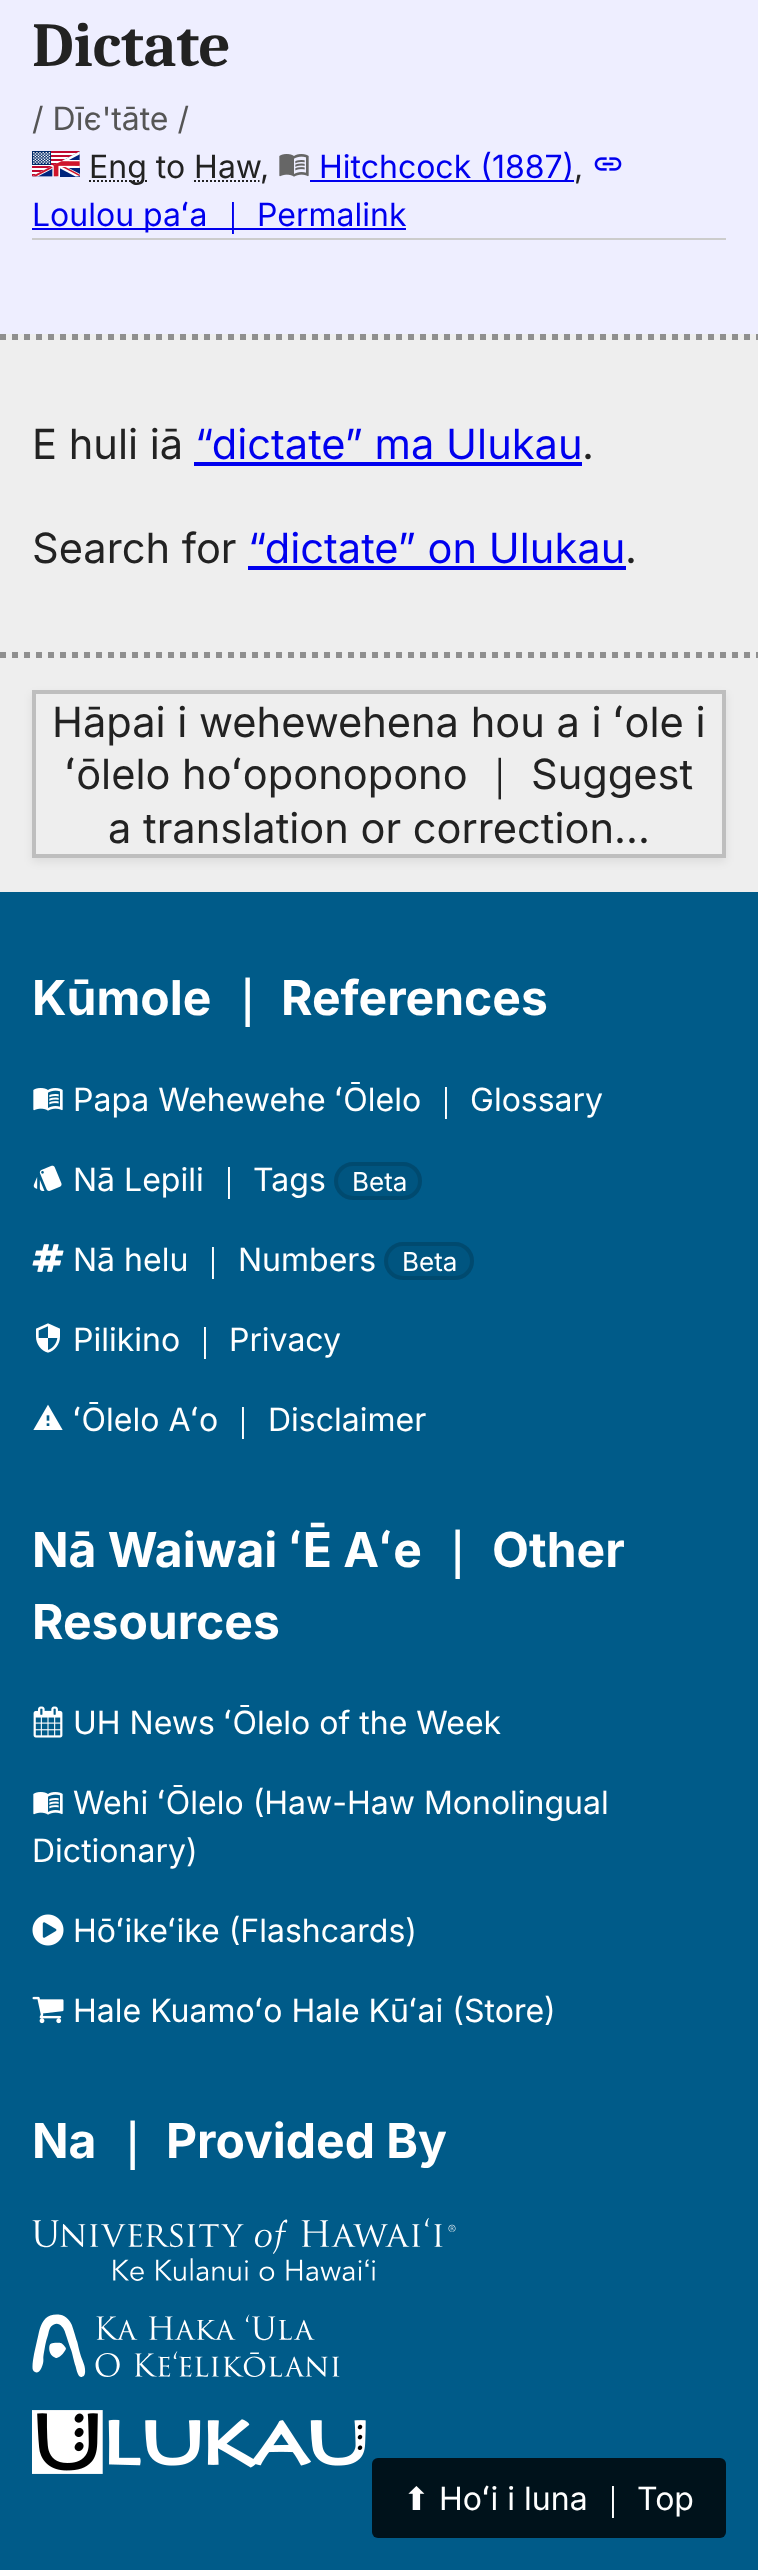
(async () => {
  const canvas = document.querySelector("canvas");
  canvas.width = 758;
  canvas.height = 2570;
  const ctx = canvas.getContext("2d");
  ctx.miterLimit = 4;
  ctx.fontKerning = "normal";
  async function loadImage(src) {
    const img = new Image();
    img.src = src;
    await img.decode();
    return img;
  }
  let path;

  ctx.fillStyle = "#eeeeee";
  ctx.fillRect(0, 0, 758, 2570);
  ctx.fillStyle = "#eeeeff";
  ctx.fillRect(0, 0, 758, 334);
  ctx.fillStyle = "#cccccc";
  ctx.fillRect(32, 238, 694, 2);
  ctx.drawImage(await loadImage("img/1.png"), 32, 151, 48, 26);
  path = new Path2D("M89 181H147");
  ctx.strokeStyle = "#222222";
  ctx.lineWidth = 2;
  ctx.setLineDash([2, 2]);
  ctx.stroke(path);
  path = new Path2D("M194 181H259.5");
  ctx.stroke(path);
  ctx.drawImage(await loadImage("img/2.png"), 279, 154, 30, 23);
  ctx.fillStyle = "#0000ee";
  ctx.fillRect(310, 180, 264, 2);
  ctx.drawImage(await loadImage("img/3.png"), 594, 157, 28, 14);
  ctx.fillRect(32, 228, 374, 2);
  path = new Path2D("M0 337H758");
  ctx.strokeStyle = "#8f8f8f";
  ctx.lineWidth = 6;
  ctx.setLineDash([6, 6]);
  ctx.stroke(path);
  ctx.fillRect(194, 462, 388, 4);
  ctx.fillRect(248, 566, 378, 4);
  path = new Path2D("M0 655H758");
  ctx.stroke(path);
  ctx.save();
  path = new Path2D("M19 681H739V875H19ZM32 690H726V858H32Z");
  ctx.clip(path, "evenodd");
  ctx.fillStyle = "rgba(0, 0, 0, 0.07)";
  ctx.filter = "blur(4px)";
  ctx.beginPath();
  ctx.rect(32, 694, 694, 168);
  ctx.fill();
  ctx.filter = "none";
  ctx.restore();
  ctx.strokeStyle = "#bebebe";
  ctx.lineWidth = 4;
  ctx.setLineDash([]);
  ctx.strokeRect(34, 692, 690, 164);
  ctx.fillStyle = "#005b89";
  ctx.fillRect(0, 892, 758, 1678);
  ctx.fillStyle = "#00121b";
  ctx.beginPath();
  ctx.roundRect(372, 2458, 354, 80, 6);
  ctx.fill();
  ctx.drawImage(await loadImage("img/4.png"), 33, 1088, 30, 23);
  ctx.drawImage(await loadImage("img/5.png"), 33, 1165, 29, 26);
  ctx.fillStyle = "#005580";
  ctx.beginPath();
  ctx.roundRect(334, 1162, 88, 38, 19);
  ctx.fill();
  ctx.beginPath();
  ctx.roundRect(336, 1164, 84, 34, 17);
  ctx.strokeStyle = "rgba(0, 0, 0, 0.13)";
  ctx.stroke();
  ctx.drawImage(await loadImage("img/6.png"), 32, 1244, 32, 28);
  ctx.beginPath();
  ctx.roundRect(384, 1242, 90, 38, 19);
  ctx.fill();
  ctx.beginPath();
  ctx.roundRect(386, 1244, 86, 34, 17);
  ctx.stroke();
  ctx.drawImage(await loadImage("img/7.png"), 36, 1323, 24, 30);
  ctx.drawImage(await loadImage("img/8.png"), 33, 1404, 30, 26);
  ctx.drawImage(await loadImage("img/9.png"), 33, 1706, 30, 32);
  ctx.drawImage(await loadImage("img/4.png"), 33, 1792, 30, 23);
  ctx.drawImage(await loadImage("img/10.png"), 32, 1914, 32, 32);
  ctx.drawImage(await loadImage("img/11.png"), 32, 1996, 32, 28);
  ctx.drawImage(await loadImage("img/12.png"), 32, 2218, 424, 63);
  ctx.drawImage(await loadImage("img/13.png"), 32, 2314, 308, 63);
  ctx.drawImage(await loadImage("img/14.png"), 32, 2410, 334, 64);
  ctx.font = "bold 62.5px Caladea";
  ctx.fillStyle = "#222222";
  ctx.fillText("Dictate", 32, 66);
  ctx.font = "32px Inter";
  ctx.fillStyle = "#555555";
  ctx.fillText("/ Dīє'tāte /", 32, 130);
  ctx.fillStyle = "#222222";
  ctx.fillText("Eng to Haw", 89, 178);
  ctx.fillStyle = "#0000ee";
  ctx.fillText("Hitchcock (1887)", 319, 178);
  ctx.fillStyle = "#222222";
  ctx.fillText(",", 574, 178);
  ctx.fillStyle = "#0000ee";
  ctx.fillText("Loulou paʻa", 32, 226);
  ctx.font = "500 32px WenQuanYi Zen Hei";
  ctx.fillText("｜", 217, 226);
  ctx.font = "32px Inter";
  ctx.fillText("Permalink", 257, 226);
  ctx.fillStyle = "#222222";
  ctx.fillText(",", 260, 178);
  ctx.font = "41.6px Inter";
  ctx.fillText("E huli iā", 32, 459);
  ctx.fillStyle = "#0000ee";
  ctx.fillText("“dictate” ma Ulukau", 195, 459);
  ctx.fillStyle = "#222222";
  ctx.fillText(".", 582, 459);
  ctx.fillText("Search for", 32, 563);
  ctx.fillStyle = "#0000ee";
  ctx.fillText("“dictate” on Ulukau", 248, 563);
  ctx.fillStyle = "#222222";
  for (const [text, x, y] of [
    [".", 625, 563],
    ["Hāpai i wehewehena hou a i ʻole i", 52, 737],
    ["ʻōlelo hoʻoponopono", 65, 789],
  ]) {
    ctx.fillText(text, x, y);
  }
  ctx.font = "500 41.6px WenQuanYi Zen Hei";
  ctx.fillText("｜", 479, 789);
  ctx.font = "41.6px Inter";
  ctx.fillText("Suggest", 531, 789);
  ctx.fillText("a translation or correction…", 108, 843);
  ctx.font = "32px DejaVu Sans";
  ctx.fillStyle = "#ffffff";
  ctx.fillText("⬆︎", 403, 2510);
  ctx.font = "32px Inter";
  ctx.fillText("Hoʻi i luna", 439, 2510);
  ctx.font = "500 32px WenQuanYi Zen Hei";
  ctx.fillText("｜", 597, 2510);
  ctx.font = "32px Inter";
  ctx.fillText("Top", 637, 2510);
  ctx.font = "bold 48px Inter";
  ctx.fillText("Kūmole", 32, 1015);
  ctx.font = "bold 48px WenQuanYi Zen Hei";
  ctx.fillText("｜", 223, 1015);
  ctx.font = "bold 48px Inter";
  ctx.fillText("References", 281, 1015);
  ctx.font = "32px Inter";
  ctx.fillText("Papa Wehewehe ʻŌlelo", 73, 1111);
  ctx.font = "500 32px WenQuanYi Zen Hei";
  ctx.fillText("｜", 430, 1111);
  ctx.font = "32px Inter";
  ctx.fillText("Glossary", 470, 1111);
  ctx.fillText("Nā Lepili", 73, 1191);
  ctx.font = "500 32px WenQuanYi Zen Hei";
  ctx.fillText("｜", 213, 1191);
  ctx.font = "32px Inter";
  ctx.fillText("Tags", 253, 1191);
  ctx.font = "26px Inter";
  ctx.fillText("Beta", 352, 1191);
  ctx.font = "32px Inter";
  ctx.fillText("Nā helu", 73, 1271);
  ctx.font = "500 32px WenQuanYi Zen Hei";
  ctx.fillText("｜", 197, 1271);
  ctx.font = "32px Inter";
  ctx.fillText("Numbers", 238, 1271);
  ctx.font = "26px Inter";
  ctx.fillText("Beta", 402, 1271);
  ctx.font = "32px Inter";
  ctx.fillText("Pilikino", 73, 1351);
  ctx.font = "500 32px WenQuanYi Zen Hei";
  ctx.fillText("｜", 189, 1351);
  ctx.font = "32px Inter";
  ctx.fillText("Privacy", 229, 1351);
  ctx.fillText("ʻŌlelo Aʻo", 73, 1431);
  ctx.font = "500 32px WenQuanYi Zen Hei";
  ctx.fillText("｜", 227, 1431);
  ctx.font = "32px Inter";
  ctx.fillText("Disclaimer", 268, 1431);
  ctx.font = "bold 48px Inter";
  ctx.fillText("Nā Waiwai ʻĒ Aʻe", 32, 1567);
  ctx.font = "bold 48px WenQuanYi Zen Hei";
  ctx.fillText("｜", 433, 1567);
  ctx.font = "bold 48px Inter";
  ctx.fillText("Other", 492, 1567);
  ctx.fillText("Resources", 32, 1639);
  ctx.font = "32px Inter";
  for (const [text, x, y] of [
    ["UH News ʻŌlelo of the Week", 73, 1734],
    ["Wehi ʻŌlelo (Haw-Haw Monolingual", 73, 1814],
    ["Dictionary)", 32, 1862],
    ["Hōʻikeʻike (Flashcards)", 73, 1942],
    ["Hale Kuamoʻo Hale Kūʻai (Store)", 73, 2022],
  ]) {
    ctx.fillText(text, x, y);
  }
  ctx.font = "bold 48px Inter";
  ctx.fillText("Na", 32, 2158);
  ctx.font = "bold 48px WenQuanYi Zen Hei";
  ctx.fillText("｜", 108, 2158);
  ctx.font = "bold 48px Inter";
  ctx.fillText("Provided By", 166, 2158);
})();
